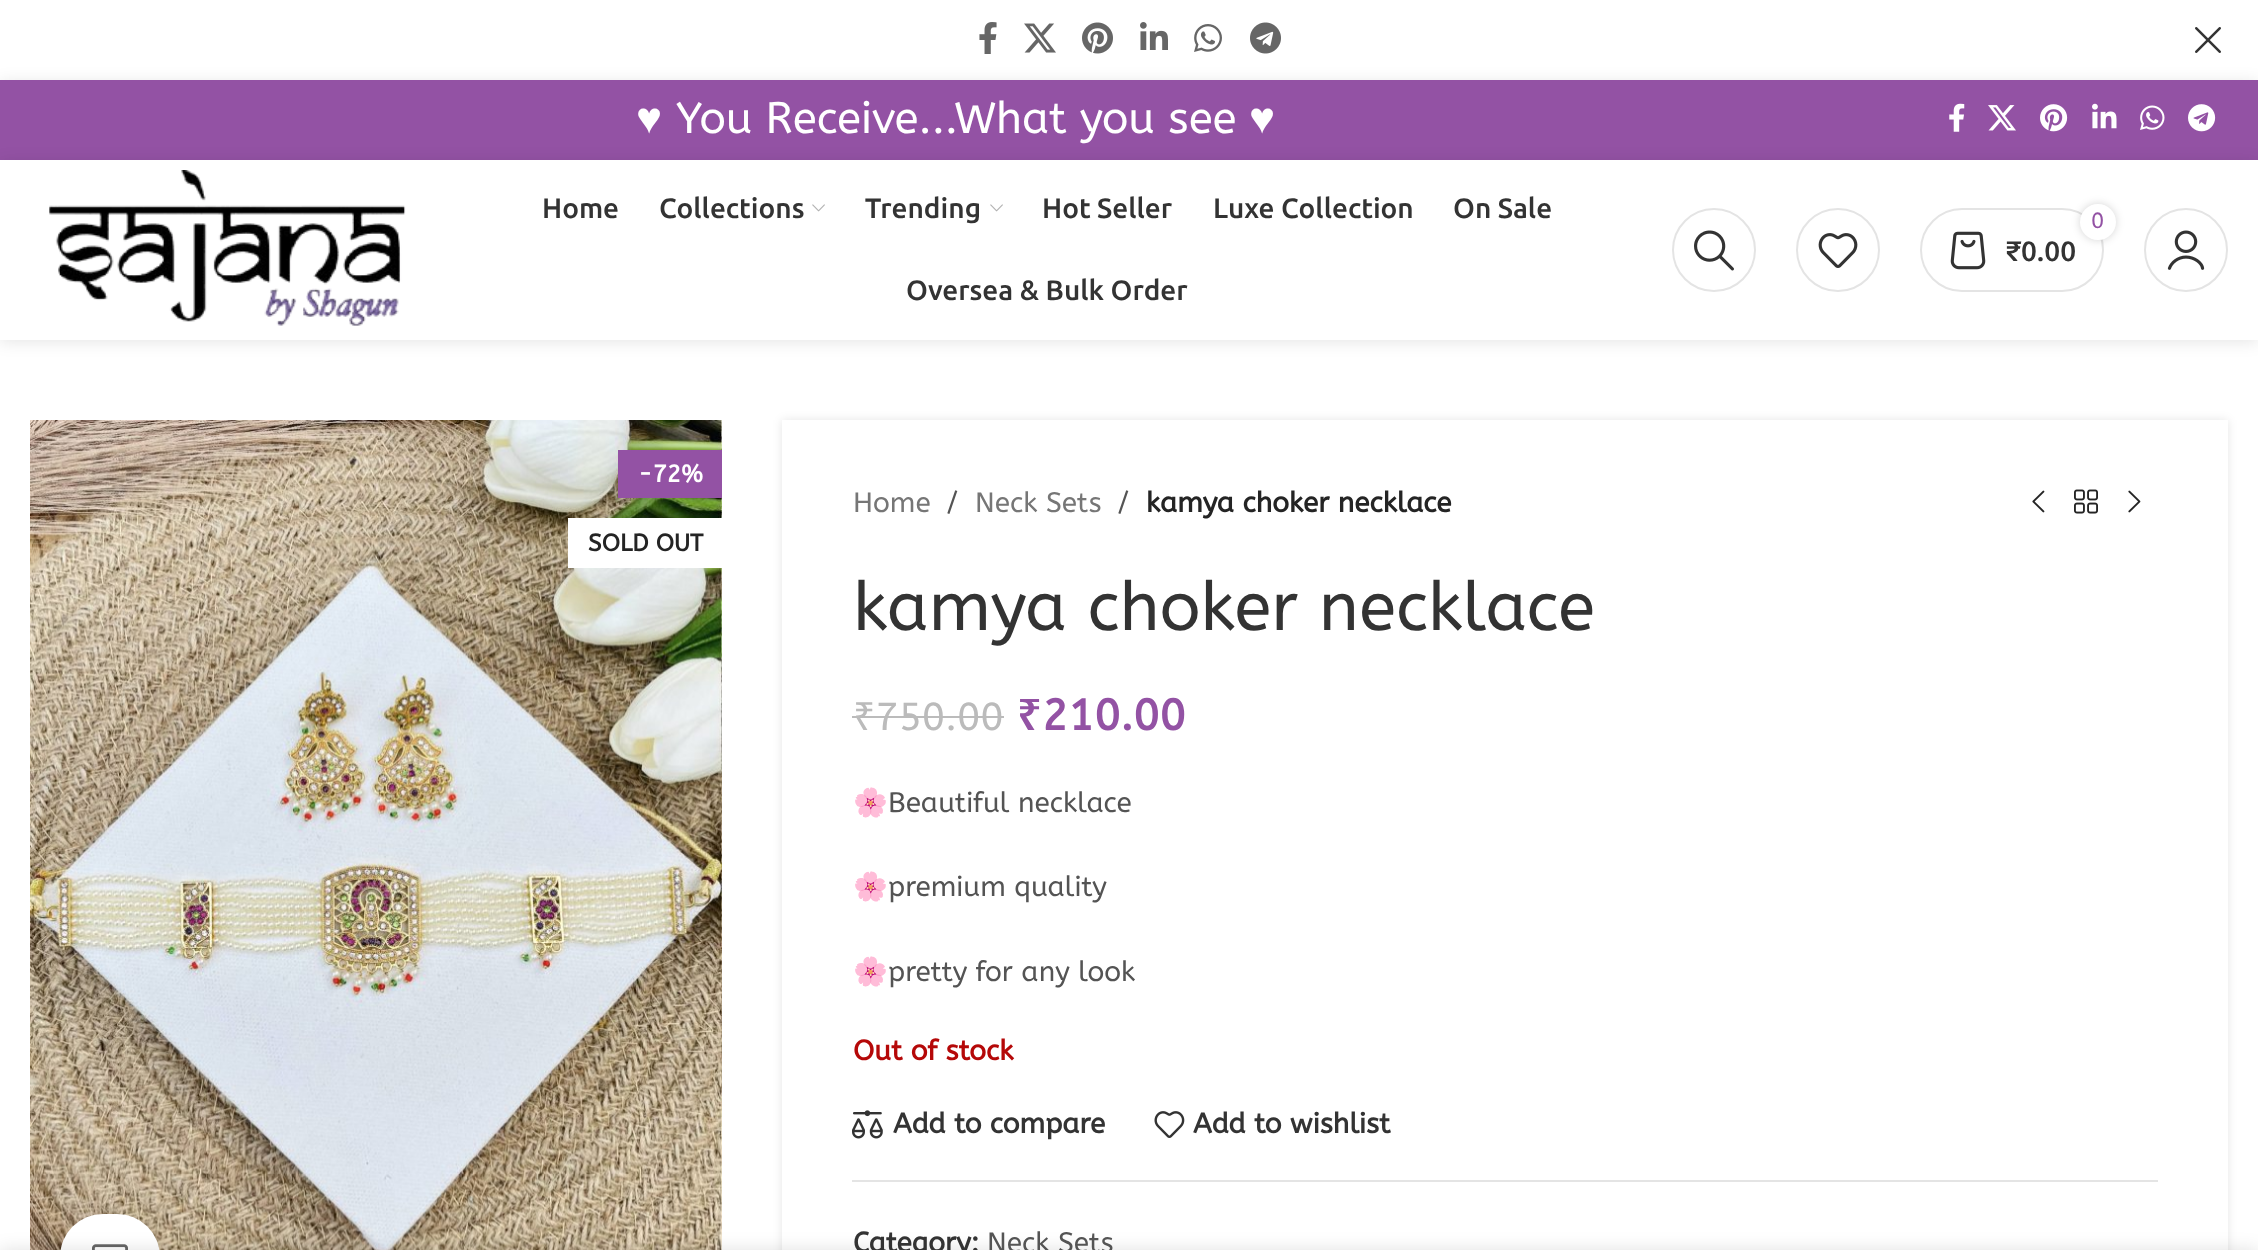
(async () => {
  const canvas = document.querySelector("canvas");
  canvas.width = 2258;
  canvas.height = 1250;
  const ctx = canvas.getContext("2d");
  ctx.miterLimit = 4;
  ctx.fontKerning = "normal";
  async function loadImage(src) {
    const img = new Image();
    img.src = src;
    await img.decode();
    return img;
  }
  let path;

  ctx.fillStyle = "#ffffff";
  ctx.fillRect(0, 0, 2258, 1250);
  ctx.drawImage(await loadImage("img/1.png"), 979, 22, 18, 32);
  ctx.drawImage(await loadImage("img/2.png"), 1024, 23, 32, 30);
  ctx.drawImage(await loadImage("img/3.png"), 1082, 22, 31, 32);
  ctx.drawImage(await loadImage("img/4.png"), 1140, 22, 28, 28);
  ctx.drawImage(await loadImage("img/5.png"), 1194, 24, 28, 28);
  ctx.drawImage(await loadImage("img/6.png"), 1250, 22, 31, 32);
  ctx.drawImage(await loadImage("img/7.png"), 2195, 27, 26, 26);
  ctx.fillStyle = "rgba(0, 0, 0, 0.1)";
  ctx.filter = "blur(8px)";
  ctx.beginPath();
  ctx.rect(0, 82, 2258, 80);
  ctx.fill();
  ctx.filter = "none";
  ctx.fillStyle = "#9352a4";
  ctx.fillRect(0, 80, 2258, 80);
  ctx.drawImage(await loadImage("img/8.png"), 1949, 103, 16, 29);
  ctx.drawImage(await loadImage("img/9.png"), 1988, 105, 28, 26);
  ctx.drawImage(await loadImage("img/10.png"), 2040, 104, 28, 28);
  ctx.drawImage(await loadImage("img/11.png"), 2092, 103, 25, 26);
  ctx.drawImage(await loadImage("img/12.png"), 2140, 105, 25, 25);
  ctx.drawImage(await loadImage("img/13.png"), 2188, 104, 28, 28);
  ctx.fillStyle = "rgba(0, 0, 0, 0.1)";
  ctx.filter = "blur(8px)";
  ctx.beginPath();
  ctx.rect(0, 162, 2258, 180);
  ctx.fill();
  ctx.filter = "none";
  ctx.fillStyle = "#ffffff";
  ctx.fillRect(0, 160, 2258, 180);
  ctx.drawImage(await loadImage("img/14.png"), 49, 170, 357, 156);
  ctx.drawImage(await loadImage("img/15.png"), 812, 204, 13, 8);
  ctx.drawImage(await loadImage("img/15.png"), 990, 204, 13, 8);
  ctx.beginPath();
  ctx.arc(1714, 250, 41, 0, Math.PI * 2);
  ctx.strokeStyle = "#e4e4e4";
  ctx.lineWidth = 2;
  ctx.stroke();
  ctx.drawImage(await loadImage("img/16.png"), 1694, 230, 40, 41);
  ctx.beginPath();
  ctx.arc(1838, 250, 41, 0, Math.PI * 2);
  ctx.stroke();
  ctx.drawImage(await loadImage("img/17.png"), 1818, 233, 40, 35);
  ctx.beginPath();
  ctx.roundRect(1921, 209, 182, 82, 41);
  ctx.stroke();
  ctx.fillStyle = "rgba(0, 0, 0, 0.17)";
  ctx.filter = "blur(4px)";
  ctx.beginPath();
  ctx.roundRect(2080, 204, 36, 36, 18);
  ctx.fill();
  ctx.filter = "none";
  ctx.fillStyle = "#ffffff";
  ctx.beginPath();
  ctx.arc(2098, 222, 18, 0, Math.PI * 2);
  ctx.fill();
  ctx.drawImage(await loadImage("img/18.png"), 1950, 231, 36, 39);
  ctx.beginPath();
  ctx.arc(2186, 250, 41, 0, Math.PI * 2);
  ctx.stroke();
  ctx.drawImage(await loadImage("img/19.png"), 2167, 230, 38, 40);
  ctx.drawImage(await loadImage("img/20.png"), 30, 420, 692, 830);
  ctx.fillStyle = "#9352a4";
  ctx.fillRect(618, 450, 104, 48);
  ctx.fillStyle = "#ffffff";
  ctx.fillRect(568, 518, 154, 50);
  ctx.fillStyle = "rgba(0, 0, 0, 0.08)";
  ctx.filter = "blur(5px)";
  ctx.beginPath();
  ctx.roundRect(60, 1214, 100, 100, 50);
  ctx.fill();
  ctx.filter = "none";
  ctx.fillStyle = "#ffffff";
  ctx.beginPath();
  ctx.roundRect(60, 1214, 100, 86, 50);
  ctx.fill();
  ctx.drawImage(await loadImage("img/21.png"), 92, 1244, 36, 6);
  ctx.save();
  path = new Path2D("M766 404H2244V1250H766ZM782 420H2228V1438H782Z");
  ctx.clip(path, "evenodd");
  ctx.fillStyle = "rgba(0, 0, 0, 0.1)";
  ctx.filter = "blur(5px)";
  ctx.beginPath();
  ctx.rect(782, 420, 1446, 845);
  ctx.fill();
  ctx.filter = "none";
  ctx.restore();
  ctx.drawImage(await loadImage("img/22.png"), 2032, 490, 13, 23);
  ctx.drawImage(await loadImage("img/23.png"), 2074, 489, 24, 25);
  ctx.drawImage(await loadImage("img/24.png"), 2128, 490, 13, 23);
  ctx.fillStyle = "#bbbbbb";
  ctx.fillRect(852, 716, 24, 2);
  ctx.fillRect(876, 716, 128, 2);
  ctx.drawImage(await loadImage("img/25.png"), 852, 1110, 31, 29);
  ctx.drawImage(await loadImage("img/26.png"), 1154, 1111, 31, 27);
  ctx.fillStyle = "#e4e4e4";
  ctx.fillRect(852, 1180, 1306, 2);
  ctx.fillStyle = "rgba(0, 0, 0, 0.12)";
  ctx.filter = "blur(9px)";
  ctx.beginPath();
  ctx.rect(0, 1250, 2258, 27);
  ctx.fill();
  ctx.filter = "none";
  ctx.font = "44px Liberation Sans";
  ctx.fillStyle = "#ffffff";
  ctx.fillText("♥", 636, 133);
  ctx.font = "44px ABeeZee";
  ctx.fillText("You Receive...What you see", 676, 133);
  ctx.font = "44px Liberation Sans";
  ctx.fillText("♥", 1249, 133);
  ctx.font = "500 28px Ubuntu";
  ctx.fillStyle = "#333333";
  for (const [text, x, y] of [
    ["Home", 542, 218],
    ["Collections", 659, 218],
    ["Trending", 865, 218],
    ["Hot Seller", 1042, 218],
    ["Luxe Collection", 1213, 218],
    ["On Sale", 1453, 218],
    ["Oversea & Bulk Order", 906, 300],
  ]) {
    ctx.fillText(text, x, y);
  }
  ctx.font = "22px ABeeZee";
  ctx.fillStyle = "#9352a4";
  ctx.fillText("0", 2091, 228);
  ctx.font = "500 28px Ubuntu";
  ctx.fillStyle = "#333333";
  ctx.fillText("₹0.00", 2005, 261);
  ctx.font = "bold 24px ABeeZee";
  ctx.fillStyle = "#ffffff";
  ctx.fillText("-72%", 638, 482);
  ctx.fillStyle = "#242424";
  ctx.fillText("SOLD OUT", 588, 551);
  ctx.font = "28px ABeeZee";
  ctx.fillStyle = "#767676";
  ctx.fillText("Home", 853, 512);
  ctx.fillStyle = "#545454";
  ctx.fillText("/", 946, 512);
  ctx.fillStyle = "#767676";
  ctx.fillText("Neck Sets", 975, 512);
  ctx.fillStyle = "#545454";
  ctx.fillText("/", 1117, 512);
  ctx.font = "bold 28px ABeeZee";
  ctx.fillStyle = "#242424";
  ctx.fillText("kamya choker necklace", 1146, 512);
  ctx.font = "68px ABeeZee";
  ctx.fillStyle = "#333333";
  ctx.fillText("kamya choker necklace", 853, 630);
  ctx.font = "39px Noto Sans";
  ctx.fillStyle = "#bbbbbb";
  ctx.fillText("₹", 853, 730);
  ctx.font = "39px ABeeZee";
  ctx.fillText("750.00", 875, 730);
  ctx.font = "600 43.5px Noto Sans";
  ctx.fillStyle = "#9352a4";
  ctx.fillText("₹", 1017, 730);
  ctx.font = "bold 43.5px ABeeZee";
  ctx.fillText("210.00", 1042, 730);
  ctx.font = "28px Noto Color Emoji";
  ctx.fillStyle = "#545454";
  ctx.fillText("🌸", 853, 812);
  ctx.font = "28px ABeeZee";
  ctx.fillText("Beautiful necklace", 888, 812);
  ctx.font = "28px Noto Color Emoji";
  ctx.fillText("🌸", 853, 896);
  ctx.font = "28px ABeeZee";
  ctx.fillText("premium quality", 888, 896);
  ctx.font = "28px Noto Color Emoji";
  ctx.fillText("🌸", 853, 981);
  ctx.font = "28px ABeeZee";
  ctx.fillText("pretty for any look", 888, 981);
  ctx.font = "bold 28px ABeeZee";
  ctx.fillStyle = "#b50808";
  ctx.fillText("Out of stock", 853, 1060);
  ctx.fillStyle = "#333333";
  for (const [text, x, y] of [
    ["Add to compare", 893, 1133],
    ["Add to wishlist", 1193, 1133],
    ["Category:", 853, 1252],
  ]) {
    ctx.fillText(text, x, y);
  }
  ctx.font = "28px ABeeZee";
  ctx.fillStyle = "#545454";
  ctx.fillText("Neck Sets", 987, 1252);
})();
